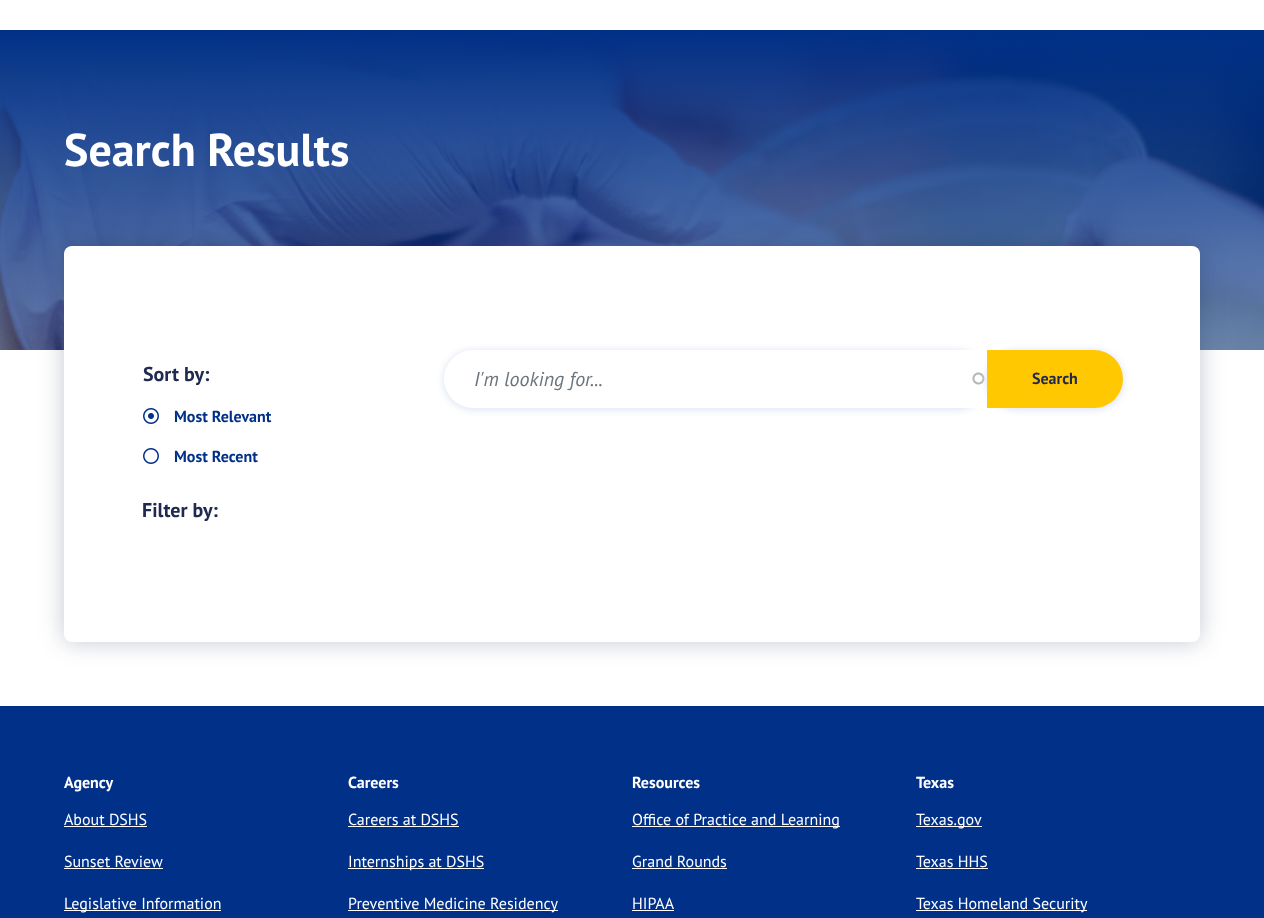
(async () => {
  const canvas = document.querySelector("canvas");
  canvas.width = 1264;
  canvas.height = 918;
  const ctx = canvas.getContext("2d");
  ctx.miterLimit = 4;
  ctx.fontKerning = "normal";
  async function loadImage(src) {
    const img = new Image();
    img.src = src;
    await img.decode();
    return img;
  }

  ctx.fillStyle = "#ffffff";
  ctx.fillRect(0, 0, 1264, 918);
  ctx.drawImage(await loadImage("img/1.png"), 0, 30, 1264, 320);
  ctx.fillStyle = "rgba(32, 41, 79, 0.26)";
  ctx.filter = "blur(12px)";
  ctx.beginPath();
  ctx.roundRect(64, 246, 1136, 396, 8);
  ctx.fill();
  ctx.filter = "none";
  ctx.fillStyle = "#ffffff";
  ctx.beginPath();
  ctx.roundRect(64, 246, 1136, 396, 8);
  ctx.fill();
  ctx.drawImage(await loadImage("img/2.png"), 143, 408, 16, 16);
  ctx.drawImage(await loadImage("img/3.png"), 143, 448, 16, 16);
  ctx.fillStyle = "#dfe5f4";
  ctx.filter = "blur(3.5px)";
  ctx.beginPath();
  ctx.roundRect(443, 350, 545, 60, 30);
  ctx.fill();
  ctx.filter = "none";
  ctx.fillStyle = "#ffffff";
  ctx.beginPath();
  ctx.roundRect(444, 350, 543, 58, [29, 0, 0, 29]);
  ctx.fill();
  ctx.drawImage(await loadImage("img/4.png"), 972, 372, 13, 13);
  ctx.fillStyle = "#dfe5f4";
  ctx.filter = "blur(3.5px)";
  ctx.beginPath();
  ctx.roundRect(986, 350, 138, 60, 30);
  ctx.fill();
  ctx.filter = "none";
  ctx.fillStyle = "#ffc800";
  ctx.beginPath();
  ctx.roundRect(987, 350, 136, 58, [0, 29, 29, 0]);
  ctx.fill();
  for (const [x, y, w, h, color] of [
    [0, 706, 1264, 212, "#003087"],
    [64, 826, 83, 1, "#ffffff"],
    [64, 868, 99, 1, "#ffffff"],
    [64, 910, 157, 1, "#ffffff"],
    [348, 826, 111, 1, "#ffffff"],
    [348, 868, 136, 1, "#ffffff"],
    [348, 910, 210, 1, "#ffffff"],
    [632, 826, 208, 1, "#ffffff"],
    [632, 868, 95, 1, "#ffffff"],
    [632, 910, 42, 1, "#ffffff"],
    [916, 826, 66, 1, "#ffffff"],
    [916, 868, 72, 1, "#ffffff"],
    [916, 910, 171, 1, "#ffffff"],
  ]) {
    ctx.fillStyle = color;
    ctx.fillRect(x, y, w, h);
  }
  ctx.font = "bold 46px PT Sans";
  ctx.fillText("Search Results", 64, 166);
  ctx.font = "bold 20px PT Sans";
  ctx.fillStyle = "#20294f";
  ctx.fillText("Sort by:", 143, 381);
  ctx.font = "bold 16px PT Sans";
  ctx.fillStyle = "#003087";
  ctx.fillText("Most Relevant", 174, 422);
  ctx.fillText("Most Recent", 174, 462);
  ctx.font = "bold 20px PT Sans";
  ctx.fillStyle = "#20294f";
  ctx.fillText("Filter by:", 142, 517);
  ctx.font = "italic 20px PT Sans";
  ctx.fillStyle = "#6c757d";
  ctx.fillText("I'm looking for...", 474, 386);
  ctx.font = "bold 16px PT Sans";
  ctx.fillStyle = "#20294f";
  ctx.fillText("Search", 1032, 384);
  ctx.fillStyle = "#ffffff";
  ctx.fillText("Agency", 64, 788);
  ctx.font = "16px PT Sans";
  for (const [text, x, y] of [
    ["About DSHS", 64, 825],
    ["Sunset Review", 64, 867],
    ["Legislative Information", 64, 909],
  ]) {
    ctx.fillText(text, x, y);
  }
  ctx.font = "bold 16px PT Sans";
  ctx.fillText("Careers", 348, 788);
  ctx.font = "16px PT Sans";
  for (const [text, x, y] of [
    ["Careers at DSHS", 348, 825],
    ["Internships at DSHS", 348, 867],
    ["Preventive Medicine Residency", 348, 909],
  ]) {
    ctx.fillText(text, x, y);
  }
  ctx.font = "bold 16px PT Sans";
  ctx.fillText("Resources", 632, 788);
  ctx.font = "16px PT Sans";
  for (const [text, x, y] of [
    ["Office of Practice and Learning", 632, 825],
    ["Grand Rounds", 632, 867],
    ["HIPAA", 632, 909],
  ]) {
    ctx.fillText(text, x, y);
  }
  ctx.font = "bold 16px PT Sans";
  ctx.fillText("Texas", 916, 788);
  ctx.font = "16px PT Sans";
  for (const [text, x, y] of [
    ["Texas.gov", 916, 825],
    ["Texas HHS", 916, 867],
    ["Texas Homeland Security", 916, 909],
  ]) {
    ctx.fillText(text, x, y);
  }
})();
